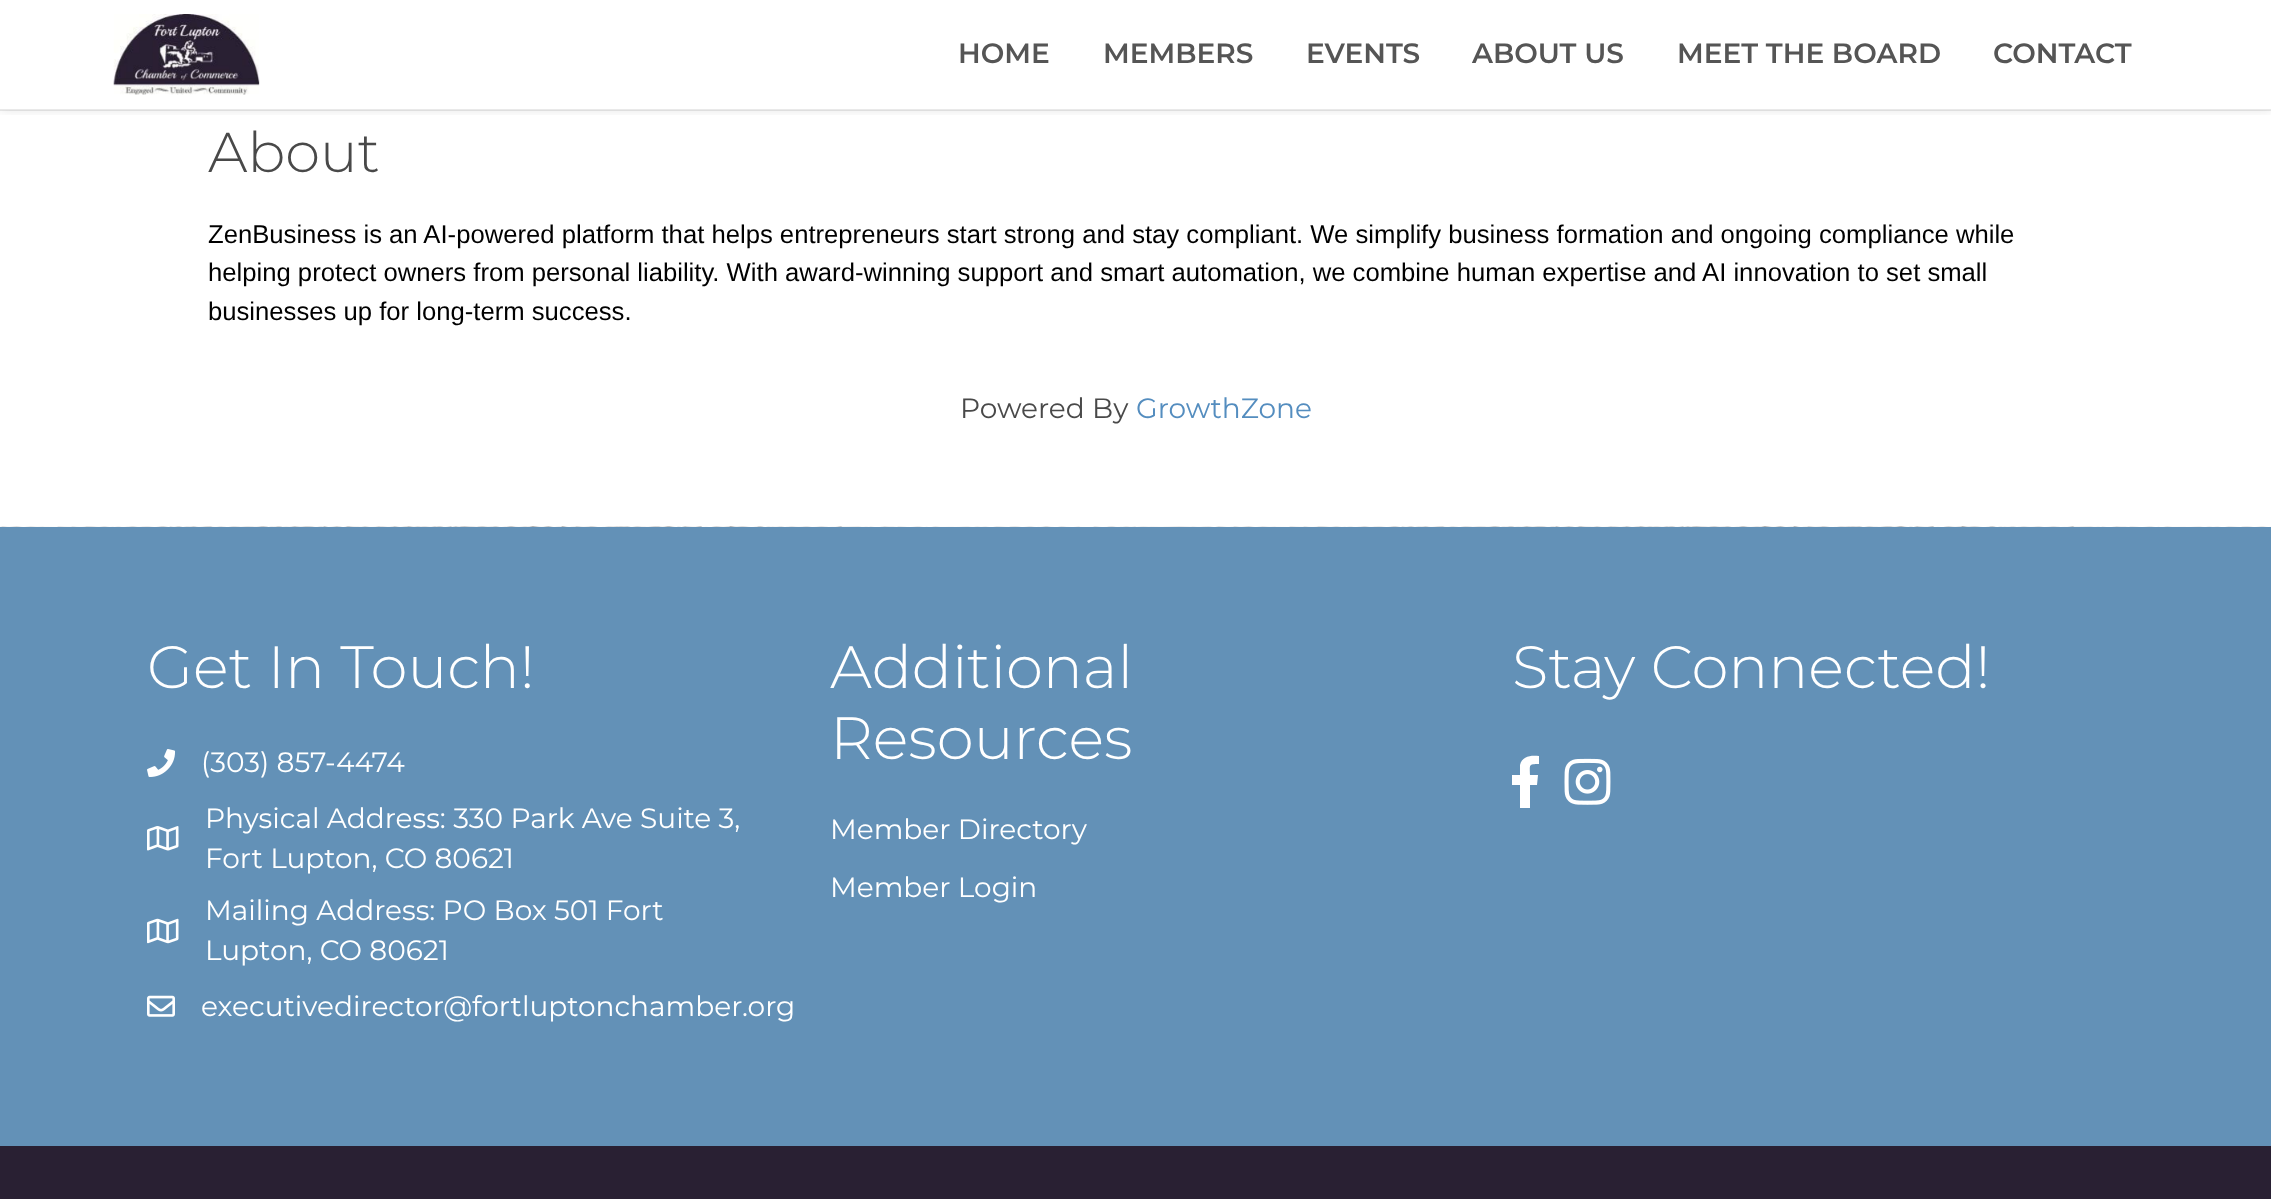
(async () => {
  const canvas = document.querySelector("canvas");
  canvas.width = 2271;
  canvas.height = 1199;
  const ctx = canvas.getContext("2d");
  ctx.miterLimit = 4;
  ctx.fontKerning = "normal";
  async function loadImage(src) {
    const img = new Image();
    img.src = src;
    await img.decode();
    return img;
  }
  let path;

  ctx.fillStyle = "#ffffff";
  ctx.fillRect(0, 0, 2271, 1199);
  ctx.save();
  ctx.beginPath();
  ctx.rect(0, 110, 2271, 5);
  ctx.clip();
  ctx.fillStyle = "rgba(0, 0, 0, 0.1)";
  ctx.filter = "blur(6px)";
  ctx.beginPath();
  ctx.rect(0, 0, 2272, 110);
  ctx.fill();
  ctx.filter = "none";
  ctx.restore();
  ctx.fillStyle = "rgba(85, 85, 85, 0.13)";
  ctx.fillRect(0, 109, 2271, 2);
  ctx.drawImage(await loadImage("img/1.png"), 113, 14, 147, 81);
  ctx.drawImage(await loadImage("img/2.png"), 0, 526, 2271, 1);
  ctx.fillStyle = "#6391b7";
  ctx.fillRect(0, 527, 2271, 619);
  ctx.drawImage(await loadImage("img/3.png"), 147, 749, 29, 28);
  ctx.drawImage(await loadImage("img/4.png"), 147, 826, 32, 25);
  ctx.drawImage(await loadImage("img/5.png"), 147, 918, 32, 26);
  ctx.drawImage(await loadImage("img/6.png"), 147, 995, 28, 22);
  ctx.fillStyle = "#ffffff";
  path = new Path2D("M1520 808V785H1512V775H1520V765C1522 756 1531 755 1539 756V764C1528 764 1530 765 1530 775H1538L1537 785H1530V808Z");
  ctx.fill(path);
  ctx.drawImage(await loadImage("img/7.png"), 1564, 758, 47, 47);
  ctx.fillStyle = "#292033";
  ctx.fillRect(0, 1146, 2271, 53);
  ctx.font = "600 28px Montserrat";
  ctx.fillStyle = "#555555";
  for (const [text, x, y] of [
    ["HOME", 958, 63],
    ["MEMBERS", 1103, 63],
    ["EVENTS", 1306, 63],
    ["ABOUT US", 1472, 63],
    ["MEET THE BOARD", 1677, 63],
    ["CONTACT", 1993, 63],
  ]) {
    ctx.fillText(text, x, y);
  }
  ctx.font = "300 56px Montserrat";
  ctx.fillStyle = "#494949";
  ctx.fillText("About", 208, 172);
  ctx.font = "25.67px Liberation Sans";
  ctx.fillStyle = "#000000";
  for (const [text, x, y] of [
    ["ZenBusiness is an AI-powered platform that helps entrepreneurs start strong and stay compliant. We simplify business formation and ongoing compliance while", 208, 243],
    ["helping protect owners from personal liability. With award-winning support and smart automation, we combine human expertise and AI innovation to set small", 208, 281],
    ["businesses up for long-term success.", 208, 320],
  ]) {
    ctx.fillText(text, x, y);
  }
  ctx.font = "28px Montserrat";
  ctx.fillStyle = "#494949";
  ctx.fillText("Powered By", 960, 418);
  ctx.fillStyle = "#548dbf";
  ctx.fillText("GrowthZone", 1136, 418);
  ctx.font = "300 59.5px Montserrat";
  ctx.fillStyle = "#ffffff";
  ctx.fillText("Get In Touch!", 147, 688);
  ctx.font = "28px Montserrat";
  for (const [text, x, y] of [
    ["(303) 857-4474", 201, 772],
    ["Physical Address: 330 Park Ave Suite 3,", 205, 828],
    ["Fort Lupton, CO 80621", 205, 868],
    ["Mailing Address: PO Box 501 Fort", 205, 920],
    ["Lupton, CO 80621", 205, 960],
    ["executivedirector@fortluptonchamber.org", 201, 1016],
  ]) {
    ctx.fillText(text, x, y);
  }
  ctx.font = "300 59.5px Montserrat";
  ctx.fillText("Additional", 830, 688);
  ctx.fillText("Resources", 830, 759);
  ctx.font = "28px Montserrat";
  ctx.fillText("Member Directory", 830, 839);
  ctx.fillText("Member Login", 830, 897);
  ctx.font = "300 59.5px Montserrat";
  ctx.fillText("Stay Connected!", 1512, 688);
})();
